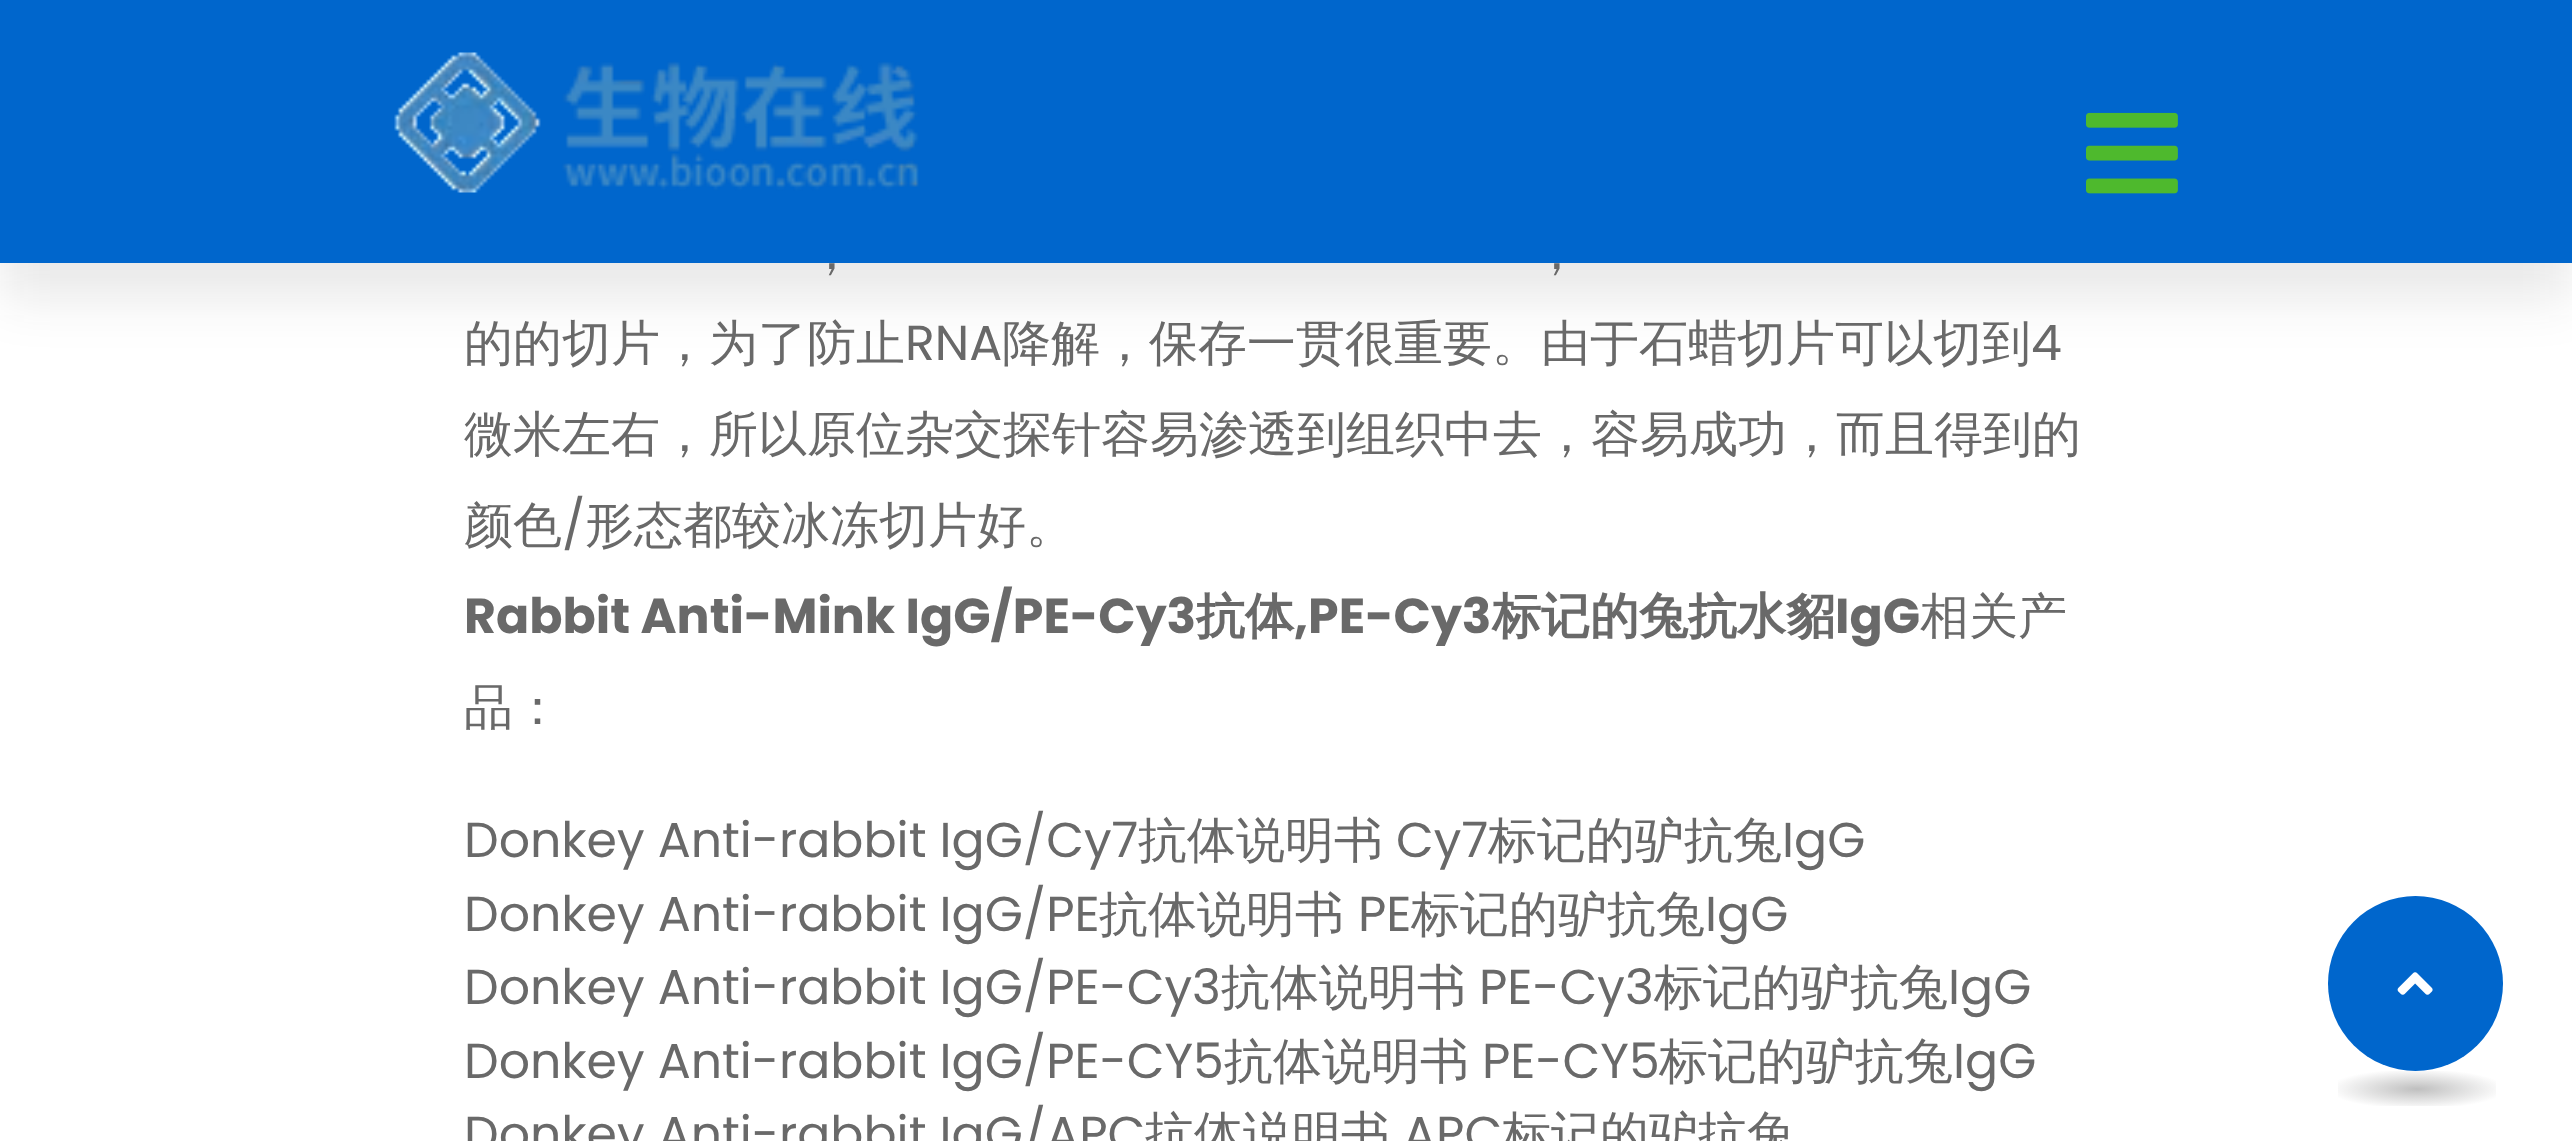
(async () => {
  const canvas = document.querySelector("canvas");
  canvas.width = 2572;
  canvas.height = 1141;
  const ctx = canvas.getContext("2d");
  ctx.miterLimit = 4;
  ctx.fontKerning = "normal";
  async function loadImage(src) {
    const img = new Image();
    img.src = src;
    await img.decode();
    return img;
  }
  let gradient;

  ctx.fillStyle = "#ffffff";
  ctx.fillRect(0, 0, 2572, 1141);
  ctx.fillStyle = "rgba(25, 25, 25, 0.1)";
  ctx.filter = "blur(26px)";
  ctx.beginPath();
  ctx.rect(0, 35, 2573, 263);
  ctx.fill();
  ctx.filter = "none";
  ctx.fillStyle = "#0066cc";
  ctx.fillRect(0, 0, 2572, 263);
  ctx.drawImage(await loadImage("img/1.png"), 394, 52, 525, 141);
  ctx.drawImage(await loadImage("img/2.png"), 2086, 112, 92, 82);
  ctx.beginPath();
  ctx.arc(2415.5, 983.5, 87.5, 0, Math.PI * 2);
  ctx.fill();
  ctx.drawImage(await loadImage("img/3.png"), 2397, 972, 36, 23);
  gradient = ctx.createRadialGradient(2417, 4835.16, 0, 2417, 4835.16, 111);
  gradient.addColorStop(0, "#bfbfbf");
  gradient.addColorStop(0.8, "#ffffff");
  ctx.fillStyle = gradient;
  ctx.beginPath();
  ctx.rect(2338, 1071, 158, 35);
  ctx.save();
  ctx.clip();
  ctx.scale(1, 25 / 111);
  ctx.fillRect(0, 0, 2572, 5067);
  ctx.restore();
  ctx.font = "500 49px WenQuanYi Zen Hei";
  ctx.fillStyle = "#696969";
  for (const [text, x, y] of [
    ["，", 807, 269],
    ["，", 1532, 269],
    ["的的切片，为了防止", 464, 360],
  ]) {
    ctx.fillText(text, x, y);
  }
  ctx.font = "49px Poppins";
  ctx.fillText("RNA", 905, 360);
  ctx.font = "500 49px WenQuanYi Zen Hei";
  ctx.fillText("降解，保存一贯很重要。由于石蜡切片可以切到", 1002, 360);
  ctx.font = "49px Poppins";
  ctx.fillText("4", 2031, 360);
  ctx.font = "500 49px WenQuanYi Zen Hei";
  ctx.fillText("微米左右，所以原位杂交探针容易渗透到组织中去，容易成功，而且得到的", 464, 451);
  ctx.fillText("颜色", 464, 542);
  ctx.font = "49px Poppins";
  ctx.fillText("/", 562, 542);
  ctx.font = "500 49px WenQuanYi Zen Hei";
  ctx.fillText("形态都较冰冻切片好。", 585, 542);
  ctx.font = "bold 49px Poppins";
  ctx.fillText("Rabbit Anti-Mink IgG/PE-Cy3", 464, 633);
  ctx.font = "bold 49px WenQuanYi Zen Hei";
  ctx.fillText("抗体", 1196, 633);
  ctx.font = "bold 49px Poppins";
  ctx.fillText(",PE-Cy3", 1294, 633);
  ctx.font = "bold 49px WenQuanYi Zen Hei";
  ctx.fillText("标记的兔抗水貂", 1492, 633);
  ctx.font = "bold 49px Poppins";
  ctx.fillText("IgG", 1835, 633);
  ctx.font = "500 49px WenQuanYi Zen Hei";
  ctx.fillText("相关产", 1920, 633);
  ctx.fillText("品：", 464, 724);
  ctx.font = "49px Poppins";
  ctx.fillText("Donkey Anti-rabbit IgG/Cy7", 464, 857);
  ctx.font = "500 49px WenQuanYi Zen Hei";
  ctx.fillText("抗体说明书", 1138, 857);
  ctx.font = "49px Poppins";
  ctx.fillText("Cy7", 1396, 857);
  ctx.font = "500 49px WenQuanYi Zen Hei";
  ctx.fillText("标记的驴抗兔", 1488, 857);
  ctx.font = "49px Poppins";
  ctx.fillText("IgG", 1782, 857);
  ctx.fillText("Donkey Anti-rabbit IgG/PE", 464, 931);
  ctx.font = "500 49px WenQuanYi Zen Hei";
  ctx.fillText("抗体说明书", 1099, 931);
  ctx.font = "49px Poppins";
  ctx.fillText("PE", 1358, 931);
  ctx.font = "500 49px WenQuanYi Zen Hei";
  ctx.fillText("标记的驴抗兔", 1411, 931);
  ctx.font = "49px Poppins";
  ctx.fillText("IgG", 1705, 931);
  ctx.fillText("Donkey Anti-rabbit IgG/PE-Cy3", 464, 1004);
  ctx.font = "500 49px WenQuanYi Zen Hei";
  ctx.fillText("抗体说明书", 1221, 1004);
  ctx.font = "49px Poppins";
  ctx.fillText("PE-Cy3", 1479, 1004);
  ctx.font = "500 49px WenQuanYi Zen Hei";
  ctx.fillText("标记的驴抗兔", 1654, 1004);
  ctx.font = "49px Poppins";
  ctx.fillText("IgG", 1948, 1004);
  ctx.fillText("Donkey Anti-rabbit IgG/PE-CY5", 464, 1078);
  ctx.font = "500 49px WenQuanYi Zen Hei";
  ctx.fillText("抗体说明书", 1224, 1078);
  ctx.font = "49px Poppins";
  ctx.fillText("PE-CY5", 1482, 1078);
  ctx.font = "500 49px WenQuanYi Zen Hei";
  ctx.fillText("标记的驴抗兔", 1659, 1078);
  ctx.font = "49px Poppins";
  ctx.fillText("IgG", 1953, 1078);
  ctx.fillText("Donkey Anti-rabbit IgG/APC", 464, 1151);
  ctx.font = "500 49px WenQuanYi Zen Hei";
  ctx.fillText("抗体说明书", 1145, 1151);
  ctx.font = "49px Poppins";
  ctx.fillText("APC", 1403, 1151);
  ctx.font = "500 49px WenQuanYi Zen Hei";
  ctx.fillText("标记的驴抗兔", 1502, 1151);
})();
